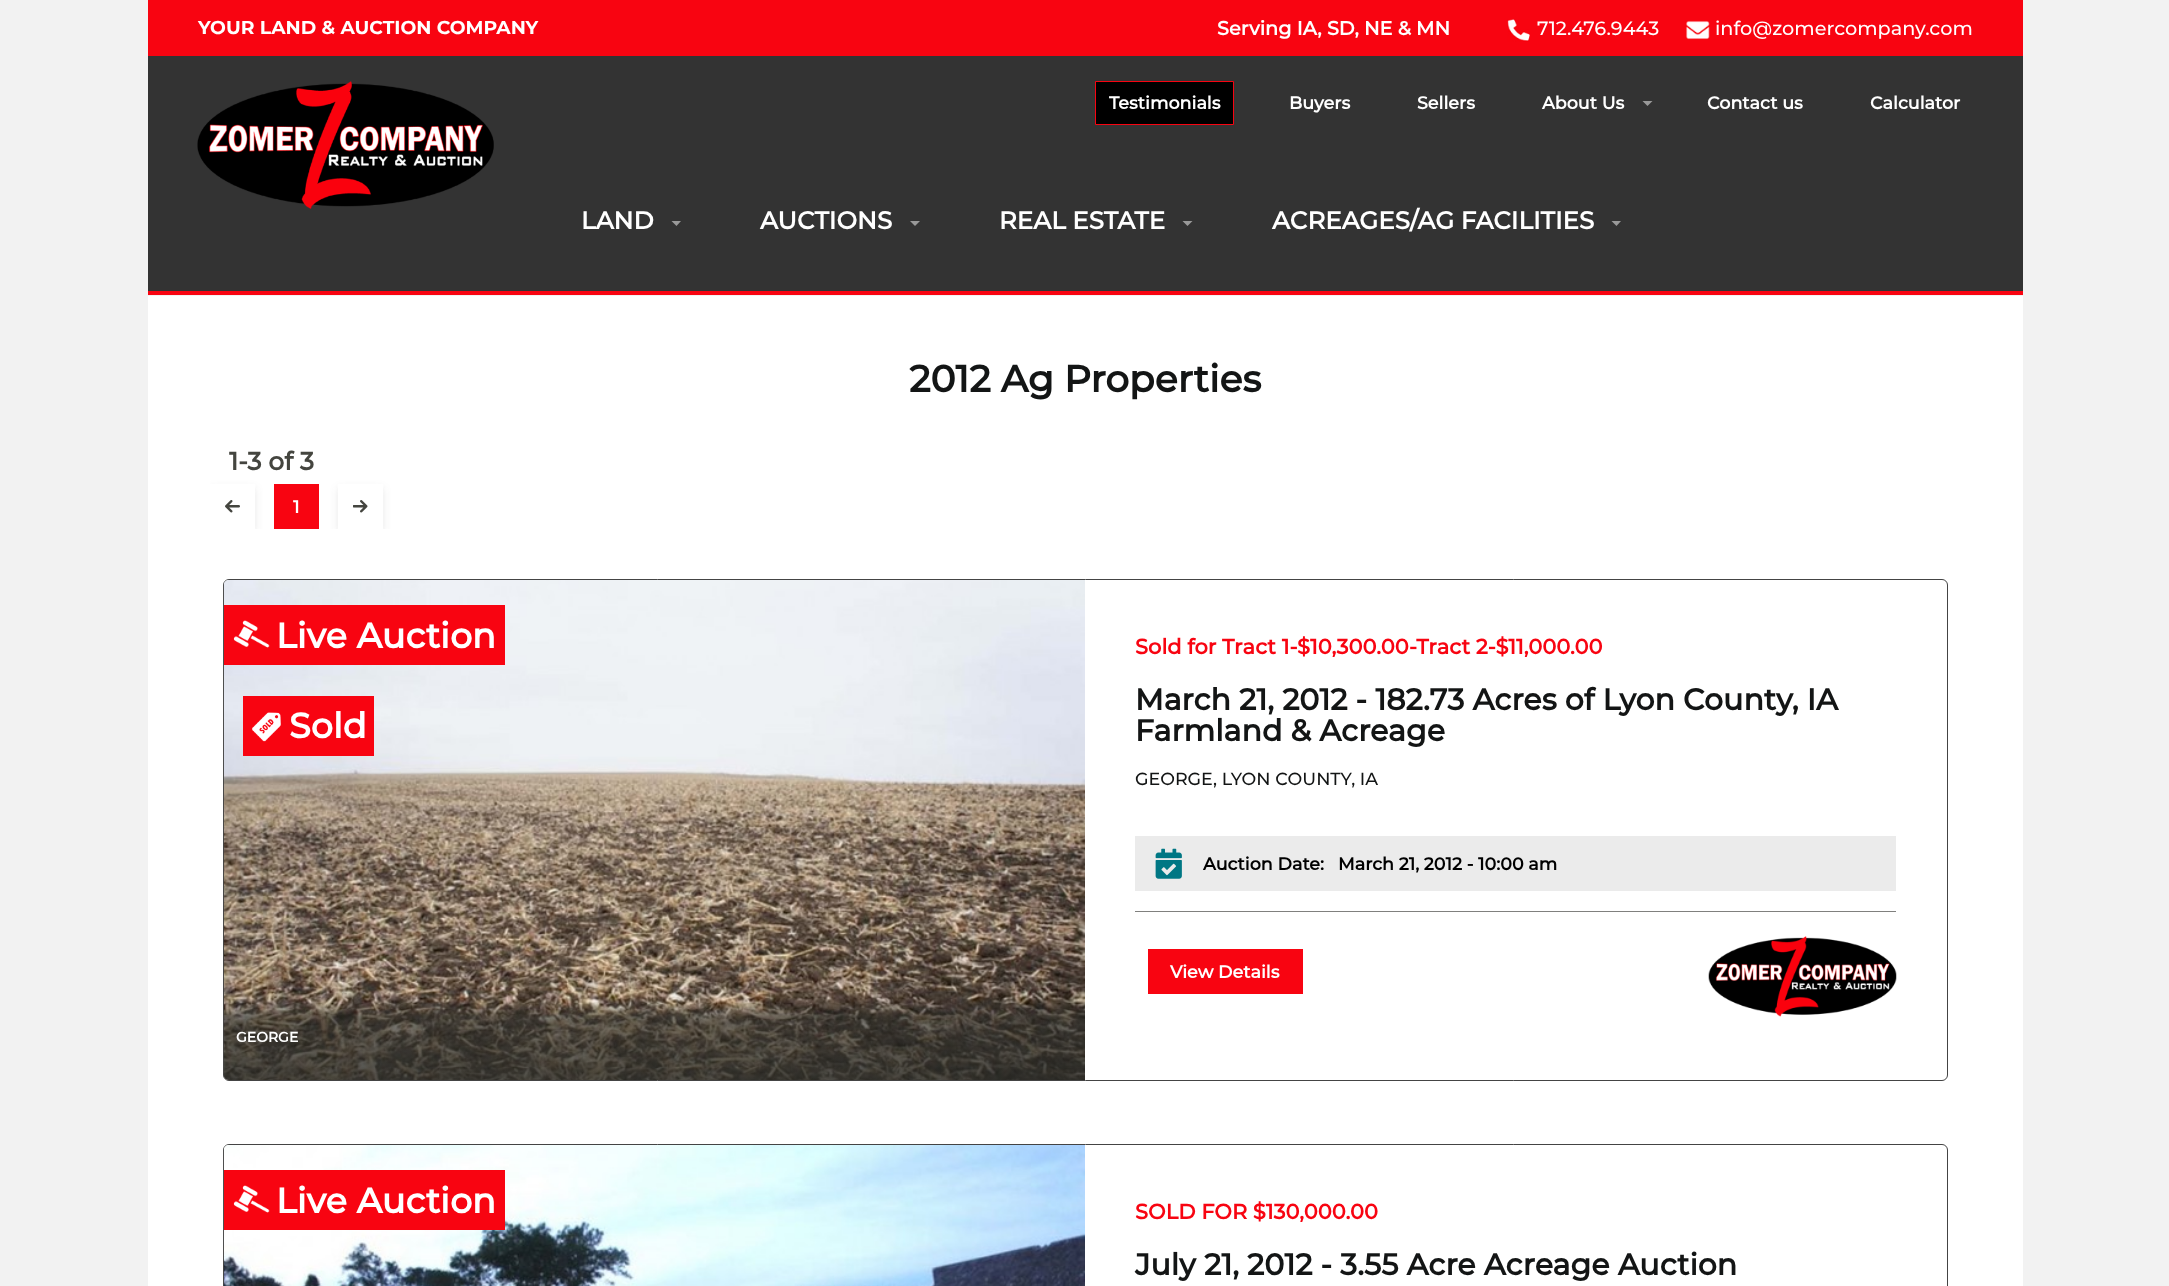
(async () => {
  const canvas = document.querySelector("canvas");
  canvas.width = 2169;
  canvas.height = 1286;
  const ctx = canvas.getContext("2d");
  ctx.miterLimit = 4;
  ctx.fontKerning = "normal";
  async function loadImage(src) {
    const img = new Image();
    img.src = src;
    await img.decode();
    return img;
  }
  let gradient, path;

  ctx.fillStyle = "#f2f2f2";
  ctx.fillRect(0, 0, 2169, 1286);
  ctx.fillStyle = "#f80411";
  ctx.fillRect(148, 291, 1875, 4);
  ctx.fillRect(148, 0, 1875, 56);
  ctx.drawImage(await loadImage("img/1.png"), 1507, 19, 23, 23);
  ctx.drawImage(await loadImage("img/2.png"), 1685, 20, 25, 20);
  ctx.fillStyle = "#333333";
  ctx.fillRect(148, 56, 1875, 235);
  ctx.drawImage(await loadImage("img/3.png"), 197, 81, 297, 128);
  ctx.fillStyle = "#000000";
  ctx.beginPath();
  ctx.rect(1095.5, 81.5, 138, 43);
  ctx.fill();
  ctx.strokeStyle = "#f80411";
  ctx.stroke();
  ctx.fillStyle = "#999999";
  path = new Path2D("M1647.5 106L1642.5 101H1652.5Z");
  ctx.fill(path);
  path = new Path2D("M676.5 226L671.5 221H681Z");
  ctx.fill(path);
  path = new Path2D("M915 226L910 221H920Z");
  ctx.fill(path);
  path = new Path2D("M1187.5 226L1182.5 221H1192.5Z");
  ctx.fill(path);
  path = new Path2D("M1616.5 226L1611.5 221H1621Z");
  ctx.fill(path);
  ctx.fillStyle = "#ffffff";
  ctx.fillRect(148, 296, 1875, 990);
  ctx.save();
  ctx.beginPath();
  ctx.rect(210, 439, 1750, 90);
  ctx.clip();
  ctx.fillStyle = "rgba(43, 44, 40, 0.1)";
  ctx.filter = "blur(4px)";
  ctx.beginPath();
  ctx.rect(210, 488, 45, 45);
  ctx.fill();
  ctx.filter = "none";
  ctx.restore();
  ctx.fillRect(210, 484, 45, 45);
  ctx.drawImage(await loadImage("img/4.png"), 225, 500, 15, 13);
  ctx.fillStyle = "#f80411";
  ctx.fillRect(274, 484, 45, 45);
  ctx.save();
  ctx.beginPath();
  ctx.rect(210, 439, 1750, 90);
  ctx.clip();
  ctx.fillStyle = "rgba(43, 44, 40, 0.1)";
  ctx.filter = "blur(4px)";
  ctx.beginPath();
  ctx.rect(338, 488, 45, 45);
  ctx.fill();
  ctx.filter = "none";
  ctx.restore();
  ctx.fillStyle = "#ffffff";
  ctx.fillRect(338, 484, 45, 45);
  ctx.drawImage(await loadImage("img/5.png"), 353, 500, 15, 13);
  ctx.beginPath();
  ctx.roundRect(223.5, 579.5, 1724, 501, 5.5);
  ctx.strokeStyle = "#444444";
  ctx.stroke();
  ctx.drawImage(await loadImage("img/6.png"), 223, 580, 862, 500);
  ctx.fillStyle = "#f80411";
  ctx.fillRect(224, 605, 281, 60);
  ctx.drawImage(await loadImage("img/7.png"), 233, 620, 37, 28);
  ctx.fillRect(243, 696, 131, 60);
  ctx.drawImage(await loadImage("img/8.png"), 252, 712, 29, 30);
  gradient = ctx.createLinearGradient(654, 1080, 654, 1001);
  gradient.addColorStop(0, "rgba(43, 44, 40, 0.8)");
  gradient.addColorStop(0.8, "rgba(43, 44, 40, 0.6)");
  gradient.addColorStop(1, "rgba(43, 44, 40, 0)");
  ctx.fillStyle = gradient;
  ctx.beginPath();
  ctx.roundRect(224, 1001, 861, 79, [0, 0, 0, 5]);
  ctx.fill();
  ctx.fillStyle = "#ebebeb";
  ctx.fillRect(1135, 836, 761, 55);
  ctx.drawImage(await loadImage("img/9.png"), 1155, 848, 27, 31);
  ctx.fillStyle = "#80807e";
  ctx.fillRect(1135, 911, 761, 1);
  ctx.fillStyle = "#f80411";
  ctx.fillRect(1148, 949, 155, 45);
  ctx.drawImage(await loadImage("img/10.png"), 1708, 936, 189, 81);
  ctx.beginPath();
  ctx.roundRect(223.5, 1144.5, 1724, 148, 5.5);
  ctx.stroke();
  ctx.drawImage(await loadImage("img/11.png"), 223, 1145, 862, 141);
  ctx.fillRect(224, 1170, 281, 60);
  ctx.drawImage(await loadImage("img/7.png"), 233, 1185, 37, 28);
  ctx.font = "bold 18.75px 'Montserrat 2'";
  ctx.fillStyle = "#ffffff";
  ctx.fillText("YOUR LAND & AUCTION COMPANY", 198, 34);
  ctx.font = "bold 19.25px Montserrat";
  ctx.fillText("Serving IA, SD, NE & MN", 1217, 35);
  ctx.font = "500 19.25px Montserrat";
  ctx.fillText("712.476.9443", 1537, 35);
  ctx.fillText("info@zomercompany.com", 1715, 35);
  ctx.font = "bold 17.5px Montserrat";
  for (const [text, x, y] of [
    ["Testimonials", 1109, 109],
    ["Buyers", 1289, 109],
    ["Sellers", 1417, 109],
    ["About Us", 1542, 109],
    ["Contact us", 1707, 109],
    ["Calculator", 1870, 109],
  ]) {
    ctx.fillText(text, x, y);
  }
  ctx.font = "bold 24.5px Montserrat";
  for (const [text, x, y] of [
    ["LAND", 581, 229],
    ["AUCTIONS", 760, 229],
    ["REAL ESTATE", 999, 229],
    ["ACREAGES/AG FACILITIES", 1272, 229],
  ]) {
    ctx.fillText(text, x, y);
  }
  ctx.font = "bold 37.5px Montserrat";
  ctx.fillStyle = "#131515";
  ctx.fillText("2012 Ag Properties", 909, 392);
  ctx.font = "bold 25px Montserrat";
  ctx.fillStyle = "#44453f";
  ctx.fillText("1-3 of 3", 229, 470);
  ctx.font = "bold 17.5px Montserrat";
  ctx.fillStyle = "#ffffff";
  ctx.fillText("1", 293, 513);
  ctx.font = "bold 35px Montserrat";
  ctx.fillText("Live Auction", 276, 648);
  ctx.fillText("Sold", 289, 738);
  ctx.font = "bold 14px Montserrat";
  ctx.fillText("GEORGE", 236, 1042);
  ctx.font = "bold 21px Montserrat";
  ctx.fillStyle = "#f80411";
  ctx.fillText("Sold for Tract 1-$10,300.00-Tract 2-$11,000.00", 1135, 654);
  ctx.font = "bold 30px Montserrat";
  ctx.fillStyle = "#131515";
  ctx.fillText("March 21, 2012 - 182.73 Acres of Lyon County, IA", 1135, 710);
  ctx.fillText("Farmland & Acreage", 1135, 741);
  ctx.font = "500 17.5px Montserrat";
  ctx.fillText("GEORGE, LYON COUNTY, IA", 1135, 785);
  ctx.font = "bold 17.5px Montserrat";
  ctx.fillStyle = "#000000";
  ctx.fillText("Auction Date:", 1203, 870);
  ctx.fillText("March 21, 2012 - 10:00 am", 1338, 870);
  ctx.fillStyle = "#ffffff";
  ctx.fillText("View Details", 1170, 978);
  ctx.font = "bold 35px Montserrat";
  ctx.fillText("Live Auction", 276, 1213);
  ctx.font = "bold 21px Montserrat";
  ctx.fillStyle = "#f80411";
  ctx.fillText("SOLD FOR $130,000.00", 1135, 1219);
  ctx.font = "bold 30px Montserrat";
  ctx.fillStyle = "#131515";
  ctx.fillText("July 21, 2012 - 3.55 Acre Acreage Auction", 1135, 1275);
})();
